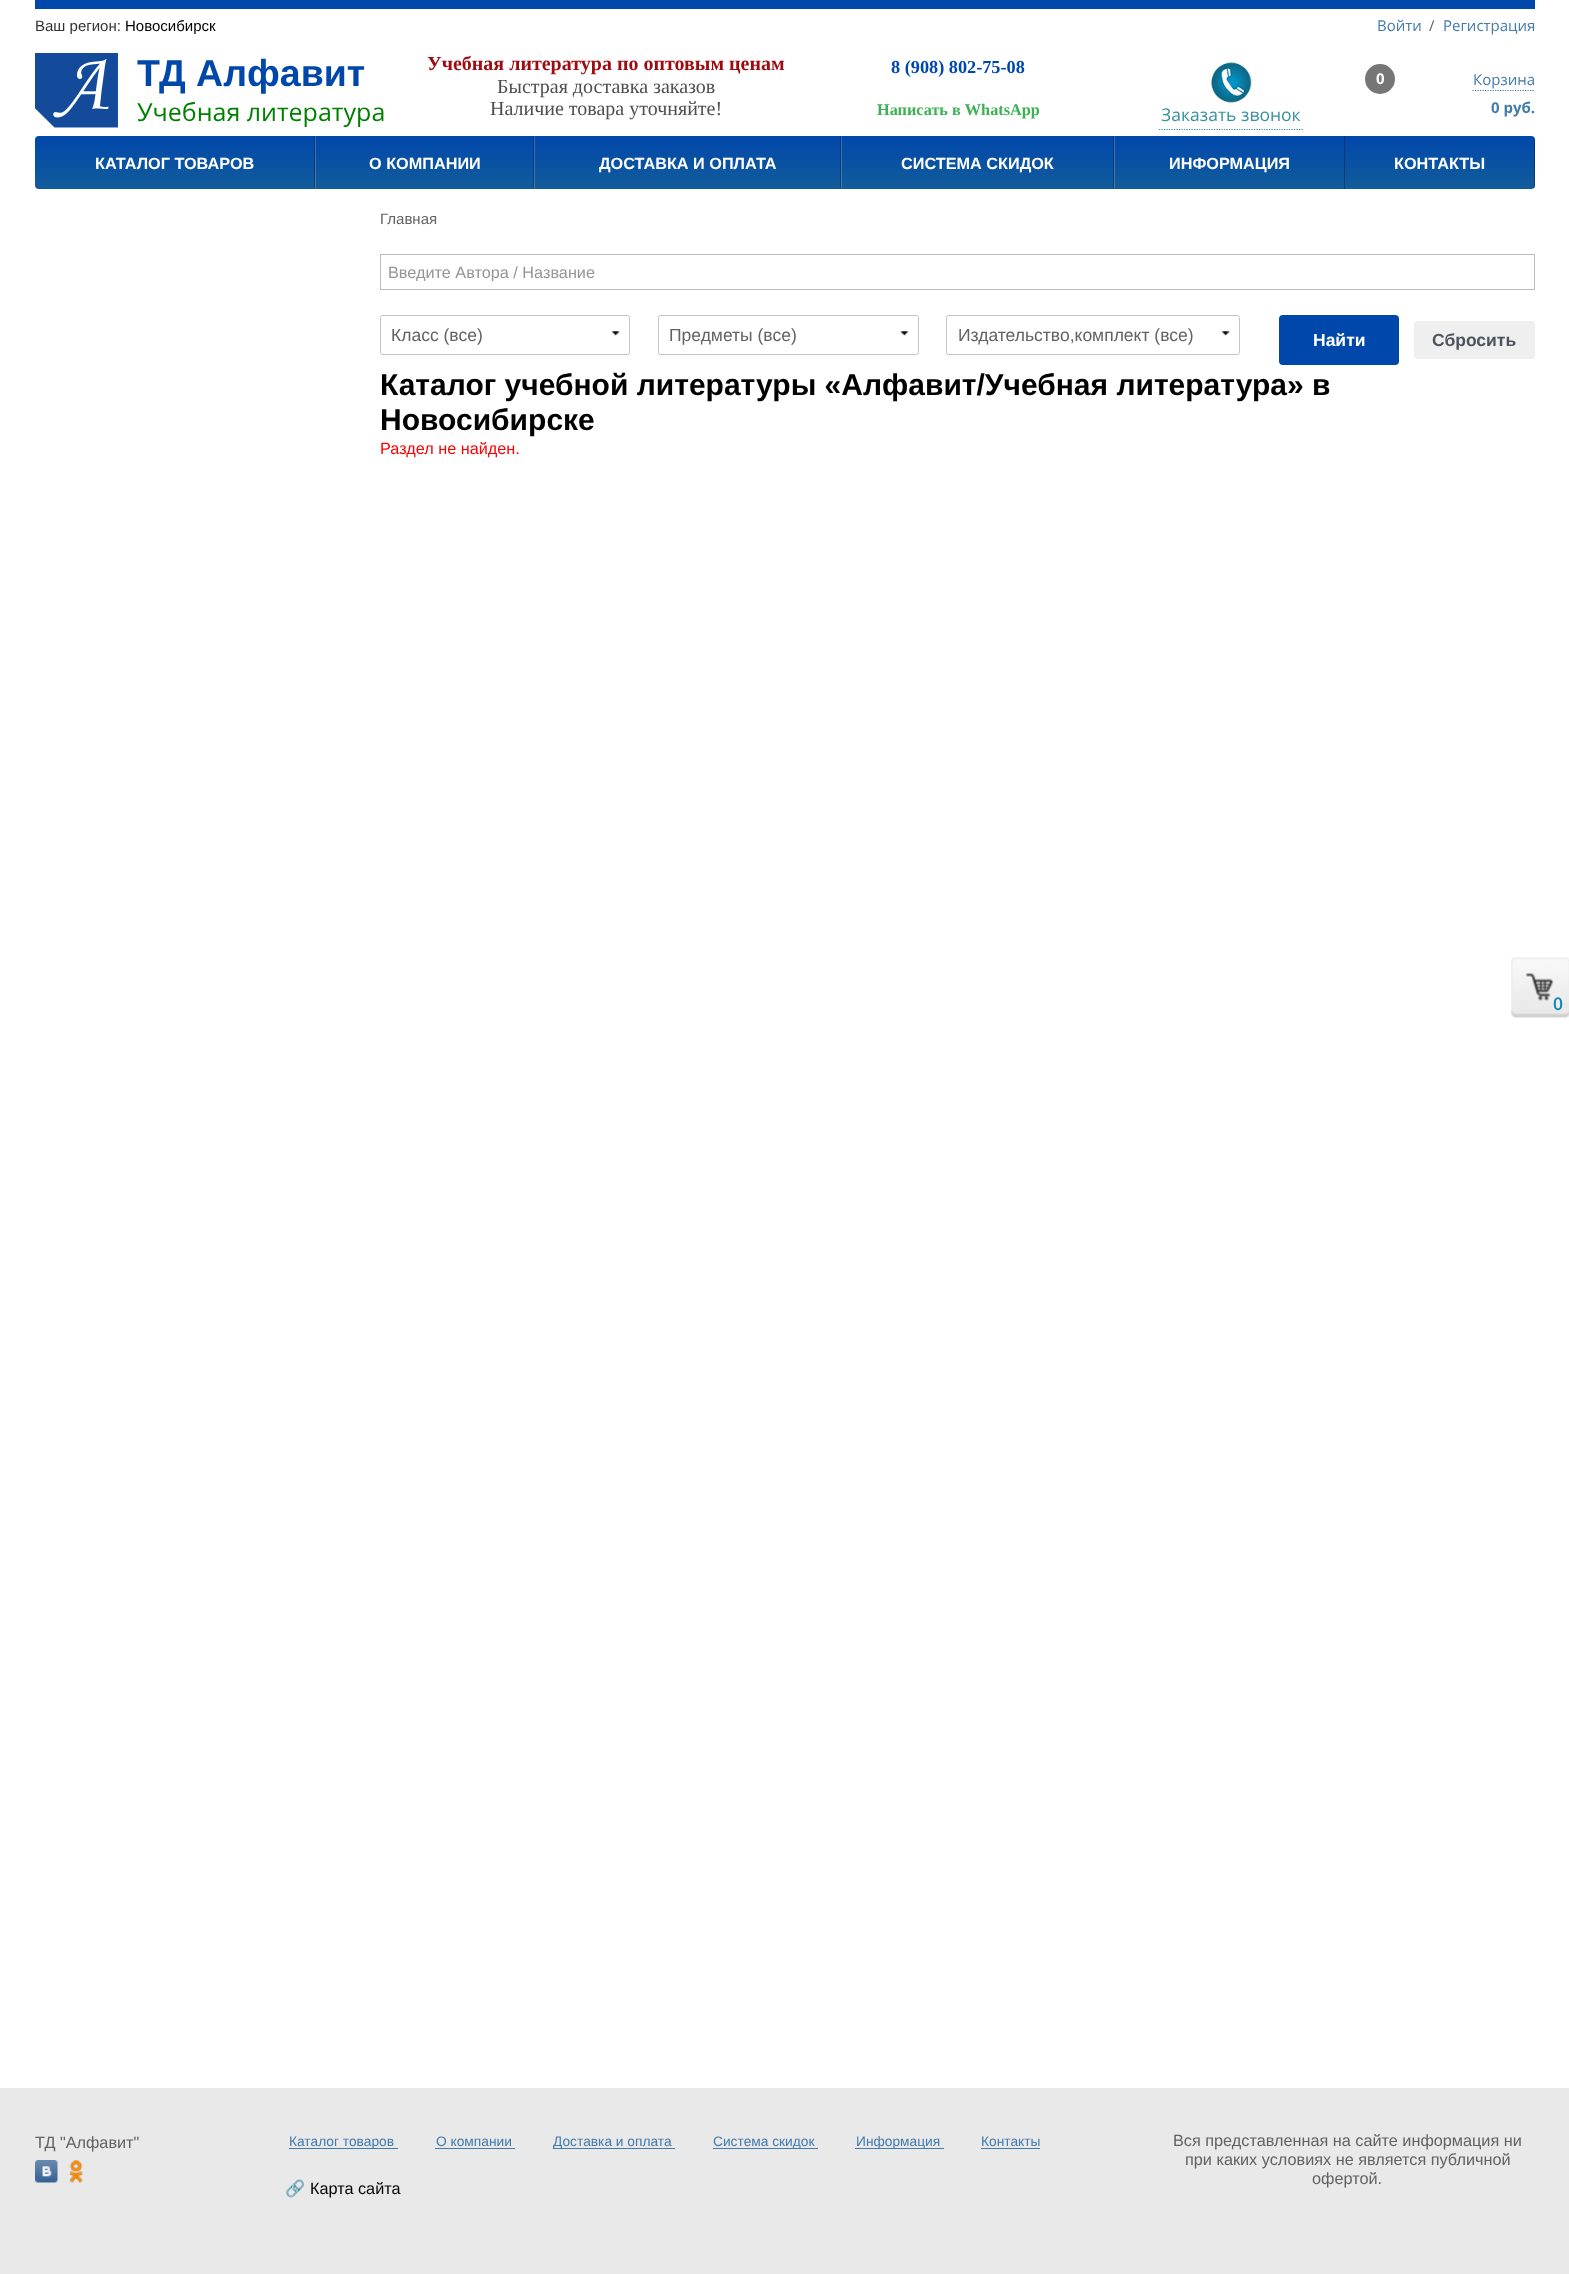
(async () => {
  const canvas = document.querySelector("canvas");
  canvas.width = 1569;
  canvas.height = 2274;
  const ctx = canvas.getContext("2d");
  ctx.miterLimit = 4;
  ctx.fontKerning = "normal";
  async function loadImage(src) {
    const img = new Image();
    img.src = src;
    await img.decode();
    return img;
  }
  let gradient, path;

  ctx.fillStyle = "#ffffff";
  ctx.fillRect(0, 0, 1569, 2274);
  ctx.fillStyle = "#0047ab";
  ctx.fillRect(35, 0, 1500, 9);
  ctx.drawImage(await loadImage("img/1.png"), 35, 53, 83, 75);
  path = new Path2D("M1159 129.5H1304");
  ctx.strokeStyle = "#3991a3";
  ctx.lineWidth = 1.2;
  ctx.setLineDash([1.25, 1.25]);
  ctx.stroke(path);
  ctx.drawImage(await loadImage("img/2.png"), 1211, 62, 41, 41);
  ctx.fillStyle = "#767676";
  ctx.beginPath();
  ctx.arc(1380, 79, 18, 0, Math.PI * 2);
  ctx.fill();
  ctx.strokeStyle = "#ffffff";
  ctx.lineWidth = 6;
  ctx.setLineDash([]);
  ctx.stroke();
  path = new Path2D("M1472.5 90.5H1535");
  ctx.strokeStyle = "#427bad";
  ctx.lineWidth = 1.2;
  ctx.setLineDash([1.25, 1.25]);
  ctx.stroke(path);
  ctx.drawImage(await loadImage("img/3.png"), 1511, 957, 58, 61);
  gradient = ctx.createLinearGradient(785, 136, 785, 189);
  gradient.addColorStop(0, "#0047ab");
  gradient.addColorStop(1, "#125c9b");
  ctx.fillStyle = gradient;
  ctx.beginPath();
  ctx.roundRect(35, 136, 1500, 53, 4);
  ctx.fill();
  gradient = ctx.createLinearGradient(785, 136, 785, 189);
  gradient.addColorStop(0, "#336cbc");
  gradient.addColorStop(1, "#417daf");
  ctx.fillStyle = gradient;
  ctx.fillRect(1114, 136, 1, 53);
  gradient = ctx.createLinearGradient(785, 136, 785, 189);
  gradient.addColorStop(0, "#003278");
  gradient.addColorStop(1, "#0d406d");
  ctx.fillStyle = gradient;
  ctx.fillRect(1344, 136, 1, 53);
  gradient = ctx.createLinearGradient(785, 136, 785, 189);
  gradient.addColorStop(0, "#336cbc");
  gradient.addColorStop(1, "#417daf");
  ctx.fillStyle = gradient;
  ctx.fillRect(841, 136, 1, 53);
  gradient = ctx.createLinearGradient(785, 136, 785, 189);
  gradient.addColorStop(0, "#003278");
  gradient.addColorStop(1, "#0d406d");
  ctx.fillStyle = gradient;
  ctx.fillRect(1113, 136, 1, 53);
  gradient = ctx.createLinearGradient(785, 136, 785, 189);
  gradient.addColorStop(0, "#336cbc");
  gradient.addColorStop(1, "#417daf");
  ctx.fillStyle = gradient;
  ctx.fillRect(534, 136, 1, 53);
  gradient = ctx.createLinearGradient(785, 136, 785, 189);
  gradient.addColorStop(0, "#003278");
  gradient.addColorStop(1, "#0d406d");
  ctx.fillStyle = gradient;
  ctx.fillRect(840, 136, 1, 53);
  gradient = ctx.createLinearGradient(785, 136, 785, 189);
  gradient.addColorStop(0, "#336cbc");
  gradient.addColorStop(1, "#417daf");
  ctx.fillStyle = gradient;
  ctx.fillRect(315, 136, 1, 53);
  gradient = ctx.createLinearGradient(785, 136, 785, 189);
  gradient.addColorStop(0, "#003278");
  gradient.addColorStop(1, "#0d406d");
  ctx.fillStyle = gradient;
  ctx.fillRect(533, 136, 1, 53);
  ctx.fillRect(314, 136, 1, 53);
  ctx.fillStyle = "rgba(0, 0, 0, 0.3)";
  ctx.fillRect(1534, 139, 1, 49);
  ctx.strokeStyle = "#b6bec1";
  ctx.lineWidth = 1;
  ctx.setLineDash([]);
  ctx.strokeRect(380.5, 254.5, 1154, 35);
  ctx.drawImage(await loadImage("img/4.png"), 611, 331, 10, 5);
  ctx.beginPath();
  ctx.roundRect(380.5, 315.5, 249, 39, 2);
  ctx.strokeStyle = "#c1c5c8";
  ctx.stroke();
  ctx.drawImage(await loadImage("img/5.png"), 900, 331, 9, 5);
  ctx.beginPath();
  ctx.roundRect(658.5, 315.5, 260, 39, 2);
  ctx.stroke();
  ctx.drawImage(await loadImage("img/4.png"), 1221, 331, 10, 5);
  ctx.beginPath();
  ctx.roundRect(946.5, 315.5, 293, 39, 2);
  ctx.stroke();
  ctx.fillStyle = "#0047ab";
  ctx.beginPath();
  ctx.roundRect(1279, 315, 120, 50, 4);
  ctx.fill();
  ctx.fillStyle = "#efefef";
  ctx.beginPath();
  ctx.roundRect(1414, 321, 121, 38, 4);
  ctx.fill();
  ctx.fillStyle = "#e9e9e9";
  ctx.fillRect(0, 2088, 1569, 186);
  ctx.drawImage(await loadImage("img/6.png"), 35, 2160, 23, 23);
  ctx.drawImage(await loadImage("img/7.png"), 69, 2160, 14, 23);
  for (const [x, y, w, h, color] of [
    [289, 2148, 109, 1, "#427bad"],
    [435, 2148, 80, 1, "#427bad"],
    [553, 2148, 118, 1, "#427bad"],
    [671, 2148, 4, 1, "#427bad"],
    [713, 2148, 101, 1, "#427bad"],
    [814, 2148, 4, 1, "#427bad"],
    [855, 2148, 89, 1, "#427bad"],
    [981, 2148, 59, 1, "#427bad"],
  ]) {
    ctx.fillStyle = color;
    ctx.fillRect(x, y, w, h);
  }
  ctx.font = "15px Liberation Sans";
  ctx.fillStyle = "#333333";
  ctx.fillText("Ваш регион:", 35, 31);
  ctx.fillStyle = "#000000";
  ctx.fillText("Новосибирск", 125, 31);
  ctx.font = "bold 37.5px Liberation Sans";
  ctx.fillStyle = "#0047ab";
  ctx.fillText("ТД Алфавит", 137, 86);
  ctx.font = "25px Open Sans";
  ctx.fillStyle = "#008000";
  ctx.fillText("Учебная литература", 137, 121);
  ctx.font = "bold 20px Liberation Serif";
  ctx.fillStyle = "#9d0a0f";
  ctx.fillText("Учебная литература по оптовым ценам", 427, 70);
  ctx.font = "20px Liberation Serif";
  ctx.fillStyle = "#4e4e4e";
  ctx.fillText("Быстрая доставка заказов", 497, 93);
  ctx.fillText("Наличие товара уточняйте!", 490, 115);
  ctx.font = "bold 18.25px Liberation Serif";
  ctx.fillStyle = "#0047ab";
  ctx.fillText("8 (908) 802-75-08", 891, 73);
  ctx.font = "bold 16.25px Liberation Serif";
  ctx.fillStyle = "#3bb153";
  ctx.fillText("Написать в WhatsApp", 877, 115);
  ctx.font = "17.5px Open Sans";
  ctx.fillStyle = "#3991a3";
  ctx.fillText("Заказать звонок", 1161, 121);
  ctx.font = "15px Open Sans";
  ctx.fillStyle = "#427bad";
  ctx.fillText("Войти", 1377, 31);
  ctx.fillStyle = "#636262";
  ctx.fillText("/", 1429, 31);
  ctx.fillStyle = "#427bad";
  ctx.fillText("Регистрация", 1443, 31);
  ctx.font = "bold 15px Open Sans";
  ctx.fillStyle = "#ffffff";
  ctx.fillText("0", 1376, 84);
  ctx.font = "15px Open Sans";
  ctx.fillStyle = "#427bad";
  ctx.fillText("Корзина", 1473, 85);
  ctx.font = "bold 15px Open Sans";
  ctx.fillText("0 руб.", 1491, 113);
  ctx.font = "600 17.5px Open Sans";
  ctx.fillStyle = "#0c86b7";
  ctx.fillText("0", 1553, 1010);
  ctx.font = "bold 16.25px Liberation Sans";
  ctx.fillStyle = "#ffffff";
  for (const [text, x, y] of [
    ["КАТАЛОГ ТОВАРОВ", 95, 169],
    ["О КОМПАНИИ", 369, 169],
    ["ДОСТАВКА И ОПЛАТА", 599, 169],
    ["СИСТЕМА СКИДОК", 901, 169],
    ["ИНФОРМАЦИЯ", 1169, 169],
    ["КОНТАКТЫ", 1394, 169],
  ]) {
    ctx.fillText(text, x, y);
  }
  ctx.font = "15px Liberation Sans";
  ctx.fillStyle = "#636262";
  ctx.fillText("Главная", 380, 224);
  ctx.save();
  ctx.beginPath();
  ctx.rect(388, 263, 1146, 18);
  ctx.clip();
  ctx.font = "16.25px Liberation Sans";
  ctx.fillStyle = "#959595";
  ctx.fillText("Введите Автора / Название", 388, 278);
  ctx.restore();
  ctx.font = "17.5px Liberation Sans";
  for (const [text, x, y] of [
    ["Класс (все)", 391, 341],
    ["Предметы (все)", 669, 341],
    ["Издательство,комплект (все)", 958, 341],
  ]) {
    ctx.fillText(text, x, y);
  }
  ctx.font = "bold 17.5px Liberation Sans";
  ctx.fillStyle = "#ffffff";
  ctx.fillText("Найти", 1313, 346);
  ctx.fillStyle = "#4d545c";
  ctx.fillText("Сбросить", 1432, 346);
  ctx.font = "bold 30px Liberation Sans";
  ctx.fillStyle = "#000000";
  ctx.fillText("Каталог учебной литературы «Алфавит/Учебная литература» в", 380, 395);
  ctx.fillText("Новосибирске", 380, 430);
  ctx.font = "16.25px Liberation Sans";
  ctx.fillStyle = "#ff0000";
  ctx.fillText("Раздел не найден.", 380, 454);
  ctx.fillStyle = "#636262";
  ctx.fillText("ТД \"Алфавит\"", 35, 2148);
  ctx.font = "13.75px Liberation Sans";
  ctx.fillStyle = "#427bad";
  for (const [text, x, y] of [
    ["Каталог товаров", 289, 2146],
    ["О компании", 436, 2146],
    ["Доставка и оплата", 553, 2146],
    ["Система скидок", 713, 2146],
    ["Информация", 856, 2146],
    ["Контакты", 981, 2146],
  ]) {
    ctx.fillText(text, x, y);
  }
  ctx.font = "16.25px Noto Color Emoji";
  ctx.fillStyle = "#000000";
  ctx.fillText("🔗", 285, 2194);
  ctx.font = "16.25px Liberation Sans";
  ctx.fillText("Карта сайта", 310, 2194);
  ctx.fillStyle = "#636262";
  for (const [text, x, y] of [
    ["Вся представленная на сайте информация ни", 1173, 2146],
    ["при каких условиях не является публичной", 1185, 2165],
    ["офертой.", 1312, 2184],
  ]) {
    ctx.fillText(text, x, y);
  }
})();
